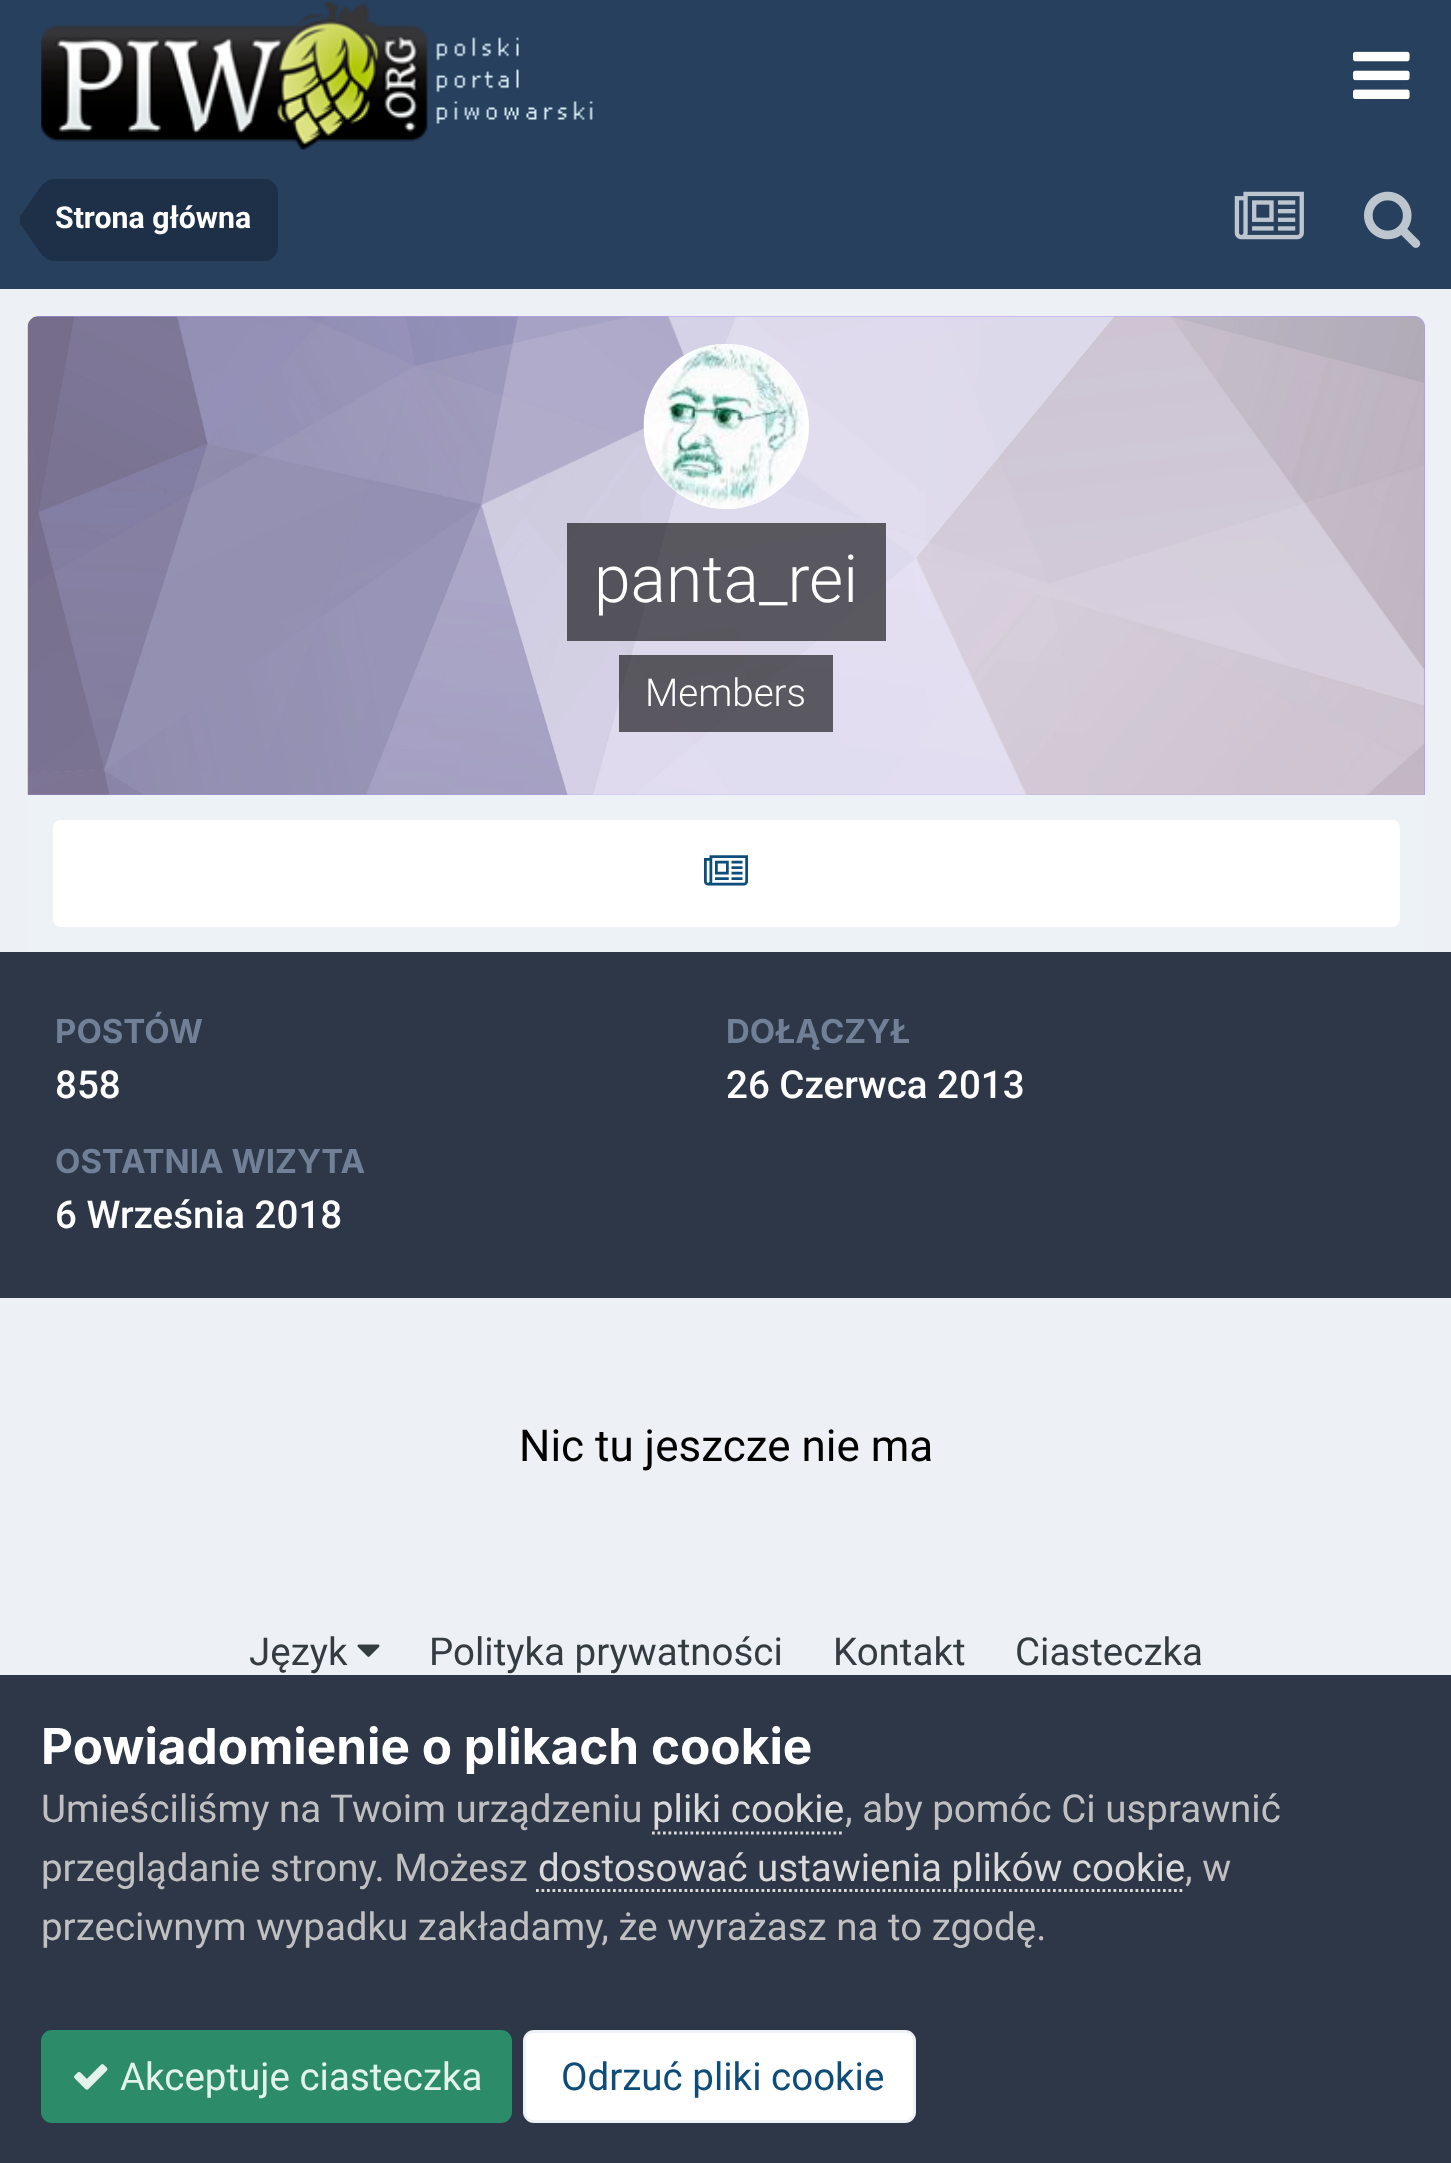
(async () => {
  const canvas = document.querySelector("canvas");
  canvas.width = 1451;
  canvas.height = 2163;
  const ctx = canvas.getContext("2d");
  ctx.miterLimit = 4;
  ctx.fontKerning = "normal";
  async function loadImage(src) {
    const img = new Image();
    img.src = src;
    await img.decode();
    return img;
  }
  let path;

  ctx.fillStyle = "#edf0f4";
  ctx.fillRect(0, 0, 1451, 2163);
  ctx.fillStyle = "#27405e";
  ctx.fillRect(0, 0, 1451, 289);
  ctx.drawImage(await loadImage("img/1.png"), 41, 1, 552, 149);
  ctx.drawImage(await loadImage("img/2.png"), 1353, 51, 57, 48);
  ctx.fillStyle = "#1d3047";
  ctx.beginPath();
  ctx.roundRect(55, 179, 223, 82, [0, 14, 14, 0]);
  ctx.fill();
  path = new Path2D("M55 220V261C49 261 44 258 39 251L21 225C20 224 20 222 20 220Z");
  ctx.fill(path);
  path = new Path2D("M55 220H20C20 218 20 216 21 215L39 189C44 182 49 179 55 179Z");
  ctx.fill(path);
  ctx.drawImage(await loadImage("img/3.png"), 1234, 191, 70, 49);
  ctx.drawImage(await loadImage("img/4.png"), 1364, 191, 57, 57);
  ctx.fillStyle = "#b699ff";
  ctx.beginPath();
  ctx.roundRect(28, 316, 1397, 479, [11, 11, 0, 0]);
  ctx.fill();
  ctx.drawImage(await loadImage("img/5.png"), 27, 316, 1398, 479);
  ctx.fillStyle = "#ffffff";
  ctx.beginPath();
  ctx.arc(726.5, 426.5, 82.5, 0, Math.PI * 2);
  ctx.fill();
  ctx.drawImage(await loadImage("img/6.png"), 643, 344, 161, 165);
  for (const [x, y, w, h, color] of [
    [567, 523, 319, 118, "rgba(0, 0, 0, 0.6)"],
    [619, 655, 214, 77, "rgba(0, 0, 0, 0.6)"],
    [28, 795, 1397, 157, "#edf2f7"],
  ]) {
    ctx.fillStyle = color;
    ctx.fillRect(x, y, w, h);
  }
  ctx.fillStyle = "#ffffff";
  ctx.beginPath();
  ctx.roundRect(50, 817, 1353, 113, 11);
  ctx.fill();
  ctx.beginPath();
  ctx.roundRect(51.5, 818.5, 1350, 110, 9.5);
  ctx.strokeStyle = "rgba(14, 76, 121, 0.07)";
  ctx.lineWidth = 3;
  ctx.stroke();
  ctx.drawImage(await loadImage("img/7.png"), 704, 855, 44, 31);
  ctx.fillStyle = "#2d3748";
  ctx.fillRect(0, 952, 1451, 346);
  ctx.drawImage(await loadImage("img/8.png"), 357, 1644, 23, 13);
  ctx.fillRect(0, 1675, 1451, 488);
  path = new Path2D("M652 1833H844");
  ctx.strokeStyle = "#dadada";
  ctx.lineWidth = 2.8;
  ctx.setLineDash([2.75, 2.75]);
  ctx.stroke(path);
  path = new Path2D("M536 1890.5H1185");
  ctx.stroke(path);
  ctx.fillStyle = "#2c8c69";
  ctx.beginPath();
  ctx.roundRect(41, 2030, 471, 93, 11);
  ctx.fill();
  ctx.drawImage(await loadImage("img/9.png"), 74, 2064, 34, 26);
  ctx.fillStyle = "#ffffff";
  ctx.beginPath();
  ctx.roundRect(523, 2030, 393, 93, 11);
  ctx.fill();
  ctx.beginPath();
  ctx.roundRect(524.5, 2031.5, 390, 90, 9.5);
  ctx.strokeStyle = "rgba(14, 76, 121, 0.07)";
  ctx.lineWidth = 3;
  ctx.setLineDash([]);
  ctx.stroke();
  ctx.font = "bold 30.25px Roboto";
  ctx.fillText("Strona główna", 55, 228);
  ctx.font = "300 66px Roboto";
  ctx.fillText("panta_rei", 594, 602);
  ctx.font = "300 38.5px Roboto";
  ctx.fillText("Members", 645, 706);
  ctx.font = "bold 33px Inter";
  ctx.fillStyle = "#718096";
  ctx.fillText("POSTÓW", 55, 1043);
  ctx.font = "500 38.5px Roboto";
  ctx.fillStyle = "#ffffff";
  ctx.fillText("858", 55, 1098);
  ctx.font = "bold 33px Inter";
  ctx.fillStyle = "#718096";
  ctx.fillText("DOŁĄCZYŁ", 726, 1043);
  ctx.font = "500 38.5px Roboto";
  ctx.fillStyle = "#ffffff";
  ctx.fillText("26 Czerwca 2013", 726, 1098);
  ctx.font = "bold 33px Inter";
  ctx.fillStyle = "#718096";
  ctx.fillText("OSTATNIA WIZYTA", 55, 1173);
  ctx.font = "500 38.5px Roboto";
  ctx.fillStyle = "#ffffff";
  ctx.fillText("6 Września 2018", 55, 1228);
  ctx.font = "44px Roboto";
  ctx.fillStyle = "#000000";
  ctx.fillText("Nic tu jeszcze nie ma", 519, 1461);
  ctx.font = "38.5px Roboto";
  ctx.fillStyle = "#353c41";
  for (const [text, x, y] of [
    ["Język", 249, 1665],
    ["Polityka prywatności", 429, 1665],
    ["Kontakt", 833, 1665],
    ["Ciasteczka", 1015, 1665],
  ]) {
    ctx.fillText(text, x, y);
  }
  ctx.font = "bold 49.5px Inter";
  ctx.fillStyle = "#ffffff";
  ctx.fillText("Powiadomienie o plikach cookie", 41, 1764);
  ctx.font = "38.5px Roboto";
  ctx.fillStyle = "#c0c0c0";
  ctx.fillText("Umieściliśmy na Twoim urządzeniu", 41, 1822);
  ctx.fillStyle = "#dadada";
  ctx.fillText("pliki cookie", 652, 1822);
  ctx.fillStyle = "#c0c0c0";
  ctx.fillText(", aby pomóc Ci usprawnić", 845, 1822);
  ctx.fillText("przeglądanie strony. Możesz", 41, 1881);
  ctx.fillStyle = "#dadada";
  ctx.fillText("dostosować ustawienia plików cookie", 538, 1881);
  ctx.fillStyle = "#c0c0c0";
  ctx.fillText(", w", 1185, 1881);
  ctx.fillText("przeciwnym wypadku zakładamy, że wyrażasz na to zgodę.", 41, 1940);
  ctx.fillStyle = "#e3f3ec";
  ctx.fillText("Akceptuje ciasteczka", 120, 2090);
  ctx.fillStyle = "#0e4c79";
  ctx.fillText("Odrzuć pliki cookie", 561, 2090);
})();
